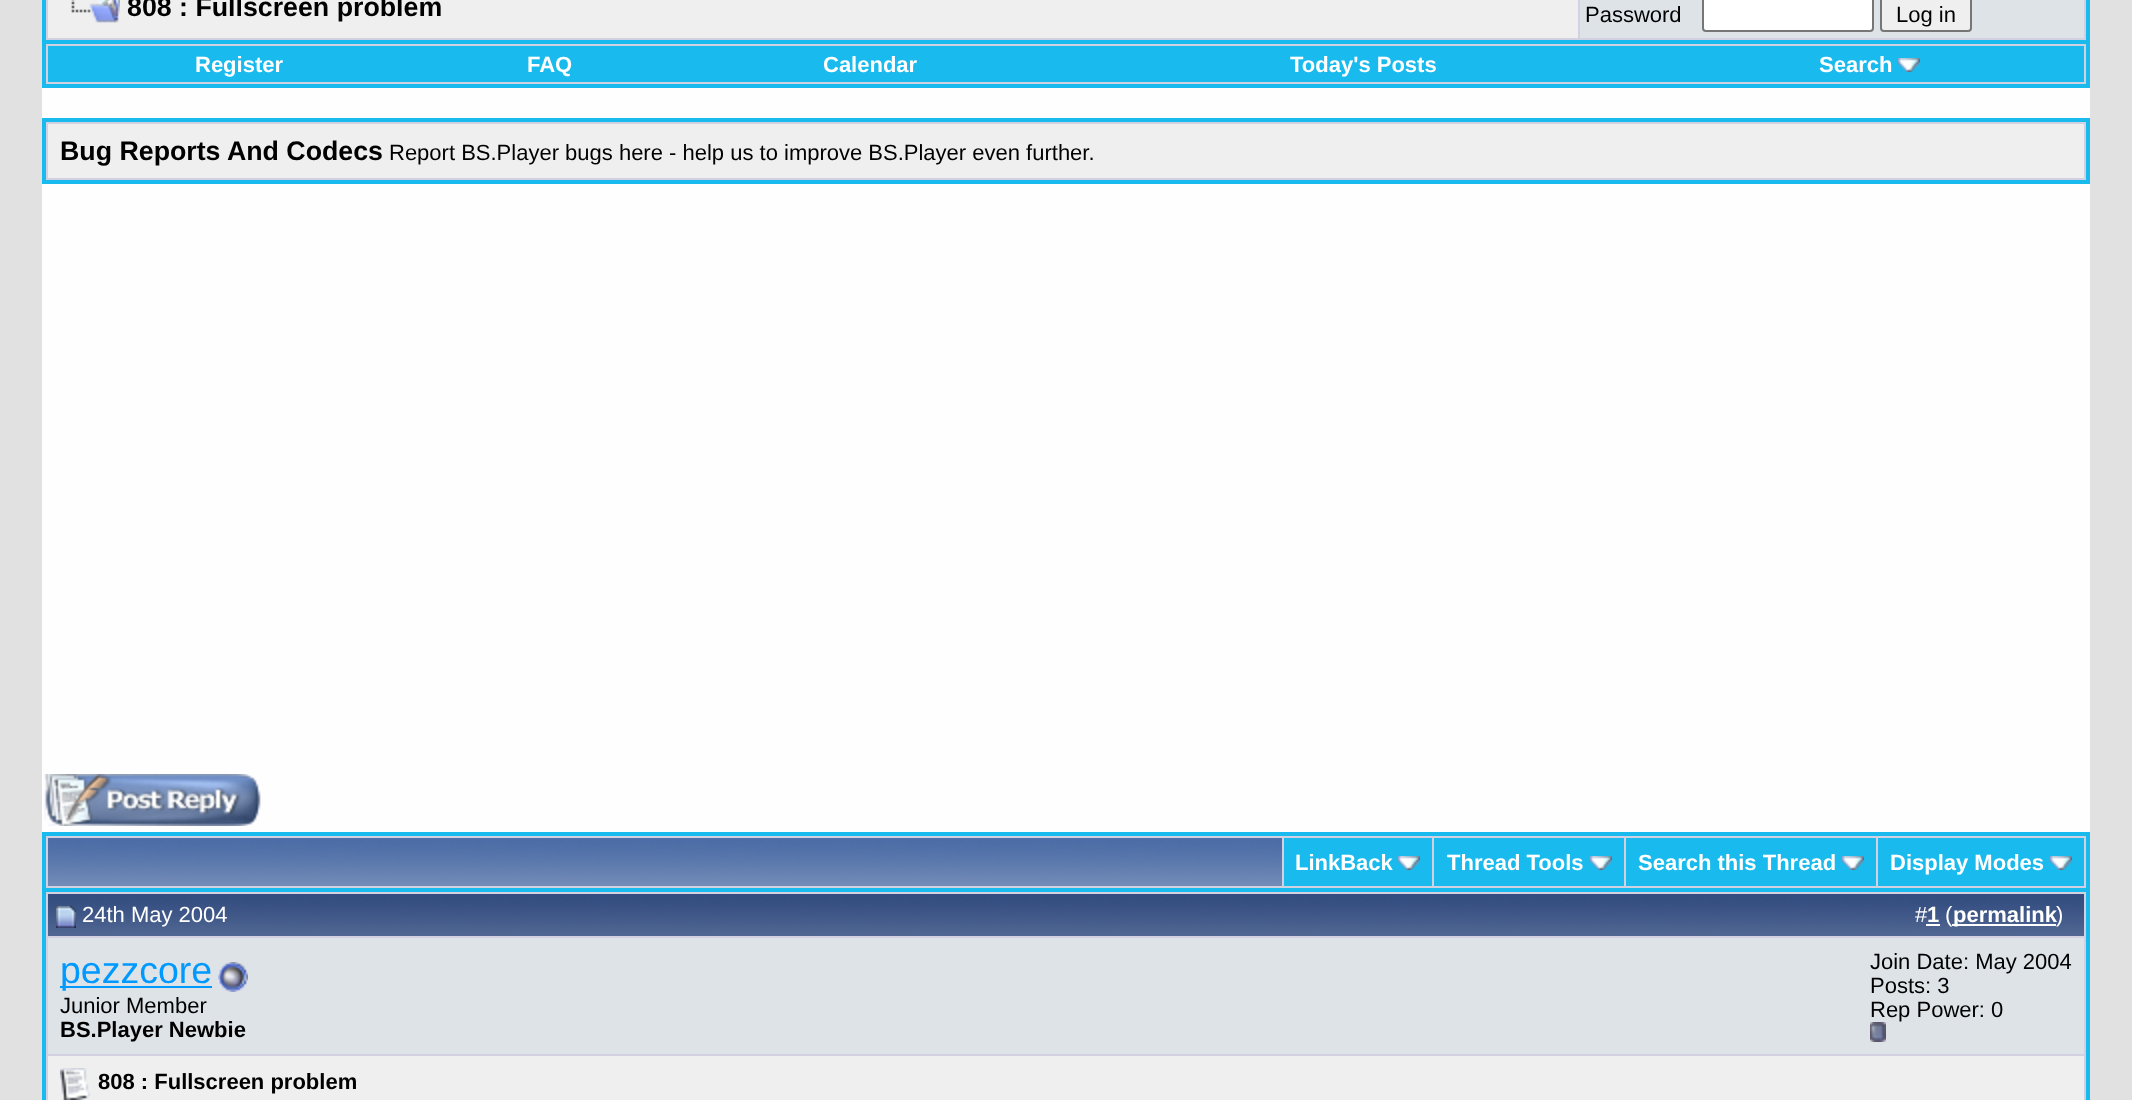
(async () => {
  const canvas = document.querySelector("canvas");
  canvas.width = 2132;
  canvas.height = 1100;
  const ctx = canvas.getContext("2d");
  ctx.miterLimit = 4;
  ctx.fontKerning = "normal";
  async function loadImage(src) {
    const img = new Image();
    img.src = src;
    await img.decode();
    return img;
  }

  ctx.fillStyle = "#e1e1e2";
  ctx.fillRect(0, 0, 2132, 1100);
  ctx.fillStyle = "#fefefe";
  ctx.fillRect(42, 88, 2048, 744);
  ctx.fillStyle = "#d1d1e1";
  ctx.beginPath();
  ctx.rect(44, -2, 2044, 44);
  ctx.fill();
  ctx.strokeStyle = "#19baed";
  ctx.lineWidth = 4;
  ctx.stroke();
  ctx.fillStyle = "#efefef";
  ctx.fillRect(48, 0, 1530, 38);
  ctx.drawImage(await loadImage("img/1.png"), 71, 0, 49, 23);
  ctx.fillStyle = "#dee3e7";
  ctx.fillRect(1580, 0, 504, 38);
  ctx.fillStyle = "#ffffff";
  ctx.beginPath();
  ctx.roundRect(1703, -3, 170, 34, 3);
  ctx.fill();
  ctx.strokeStyle = "#767676";
  ctx.lineWidth = 2;
  ctx.stroke();
  ctx.fillStyle = "#efefef";
  ctx.beginPath();
  ctx.roundRect(1881, -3, 90, 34, 3);
  ctx.fill();
  ctx.stroke();
  for (const [x, y, w, h, color] of [
    [46, 44, 2040, 40, "#d1d1e1"],
    [2086, 44, 4, 44, "#19baed"],
    [42, 84, 2048, 4, "#19baed"],
    [42, 44, 4, 44, "#19baed"],
    [48, 46, 2036, 36, "#19baed"],
  ]) {
    ctx.fillStyle = color;
    ctx.fillRect(x, y, w, h);
  }
  ctx.drawImage(await loadImage("img/2.png"), 1898, 58, 22, 14);
  ctx.fillStyle = "#d1d1e1";
  ctx.beginPath();
  ctx.rect(44, 120, 2044, 62);
  ctx.fill();
  ctx.strokeStyle = "#19baed";
  ctx.lineWidth = 4;
  ctx.stroke();
  ctx.fillStyle = "#efefef";
  ctx.fillRect(48, 124, 2036, 54);
  ctx.drawImage(await loadImage("img/3.png"), 44, 774, 217, 52);
  for (const [x, y, w, h, color] of [
    [46, 836, 2040, 52, "#d1d1e1"],
    [42, 832, 2048, 4, "#19baed"],
    [2086, 832, 4, 56, "#19baed"],
    [42, 832, 4, 56, "#19baed"],
  ]) {
    ctx.fillStyle = color;
    ctx.fillRect(x, y, w, h);
  }
  ctx.drawImage(await loadImage("img/4.png"), 48, 838, 1234, 48);
  ctx.fillRect(1284, 838, 148, 48);
  ctx.drawImage(await loadImage("img/2.png"), 1398, 856, 22, 14);
  ctx.fillRect(1434, 838, 190, 48);
  ctx.drawImage(await loadImage("img/2.png"), 1590, 856, 22, 14);
  ctx.fillRect(1626, 838, 250, 48);
  ctx.drawImage(await loadImage("img/2.png"), 1842, 856, 22, 14);
  ctx.fillRect(1878, 838, 206, 48);
  ctx.drawImage(await loadImage("img/2.png"), 2050, 856, 22, 14);
  ctx.fillStyle = "#d1d1e1";
  ctx.beginPath();
  ctx.rect(44, 890, 2044, 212);
  ctx.fill();
  ctx.stroke();
  ctx.drawImage(await loadImage("img/5.png"), 48, 894, 2036, 42);
  ctx.drawImage(await loadImage("img/6.png"), 56, 906, 20, 22);
  for (const [x, y, w, h, color] of [
    [1926, 924, 14, 2, "#ffffff"],
    [1952, 924, 104, 2, "#ffffff"],
    [48, 938, 2036, 116, "#dee3e7"],
    [60, 986, 152, 2, "#0099ff"],
  ]) {
    ctx.fillStyle = color;
    ctx.fillRect(x, y, w, h);
  }
  ctx.drawImage(await loadImage("img/7.png"), 218, 962, 30, 30);
  ctx.drawImage(await loadImage("img/8.png"), 1870, 1022, 16, 20);
  ctx.fillStyle = "#efefef";
  ctx.fillRect(48, 1056, 2036, 44);
  ctx.drawImage(await loadImage("img/9.png"), 60, 1068, 31, 32);
  ctx.font = "bold 26.75px Liberation Sans";
  ctx.fillStyle = "#000000";
  ctx.fillText("808 : Fullscreen problem", 127, 16);
  ctx.font = "22px Liberation Sans";
  ctx.fillText("Password", 1585, 22);
  ctx.fillText("Log in", 1896, 22);
  ctx.font = "bold 22px Liberation Sans";
  ctx.fillStyle = "#ffffff";
  for (const [text, x, y] of [
    ["Register", 195, 72],
    ["FAQ", 527, 72],
    ["Calendar", 823, 72],
    ["Today's Posts", 1290, 72],
    ["Search", 1819, 72],
  ]) {
    ctx.fillText(text, x, y);
  }
  ctx.font = "bold 26.75px Liberation Sans";
  ctx.fillStyle = "#000000";
  ctx.fillText("Bug Reports And Codecs", 60, 160);
  ctx.font = "22px Liberation Sans";
  ctx.fillText("Report BS.Player bugs here - help us to improve BS.Player even further.", 389, 160);
  ctx.font = "bold 22px Liberation Sans";
  ctx.fillStyle = "#ffffff";
  for (const [text, x, y] of [
    ["LinkBack", 1295, 870],
    ["Thread Tools", 1447, 870],
    ["Search this Thread", 1638, 870],
    ["Display Modes", 1890, 870],
  ]) {
    ctx.fillText(text, x, y);
  }
  ctx.font = "22px Liberation Sans";
  ctx.fillText("24th May 2004", 82, 922);
  ctx.fillText("#", 1915, 922);
  ctx.font = "bold 22px Liberation Sans";
  ctx.fillText("1", 1927, 922);
  ctx.font = "22px Liberation Sans";
  ctx.fillText("(", 1945, 922);
  ctx.font = "bold 22px Liberation Sans";
  ctx.fillText("permalink", 1953, 922);
  ctx.font = "22px Liberation Sans";
  ctx.fillText(")", 2056, 922);
  ctx.font = "37.5px Liberation Sans";
  ctx.fillStyle = "#0099ff";
  ctx.fillText("pezzcore", 60, 983);
  ctx.font = "22px Liberation Sans";
  ctx.fillStyle = "#000000";
  ctx.fillText("Junior Member", 60, 1013);
  ctx.font = "bold 22px Liberation Sans";
  ctx.fillText("BS.Player Newbie", 60, 1037);
  ctx.font = "22px Liberation Sans";
  for (const [text, x, y] of [
    ["Join Date: May 2004", 1870, 969],
    ["Posts: 3", 1870, 993],
    ["Rep Power: 0", 1870, 1017],
  ]) {
    ctx.fillText(text, x, y);
  }
  ctx.font = "bold 22px Liberation Sans";
  ctx.fillText("808 : Fullscreen problem", 98, 1089);
})();
